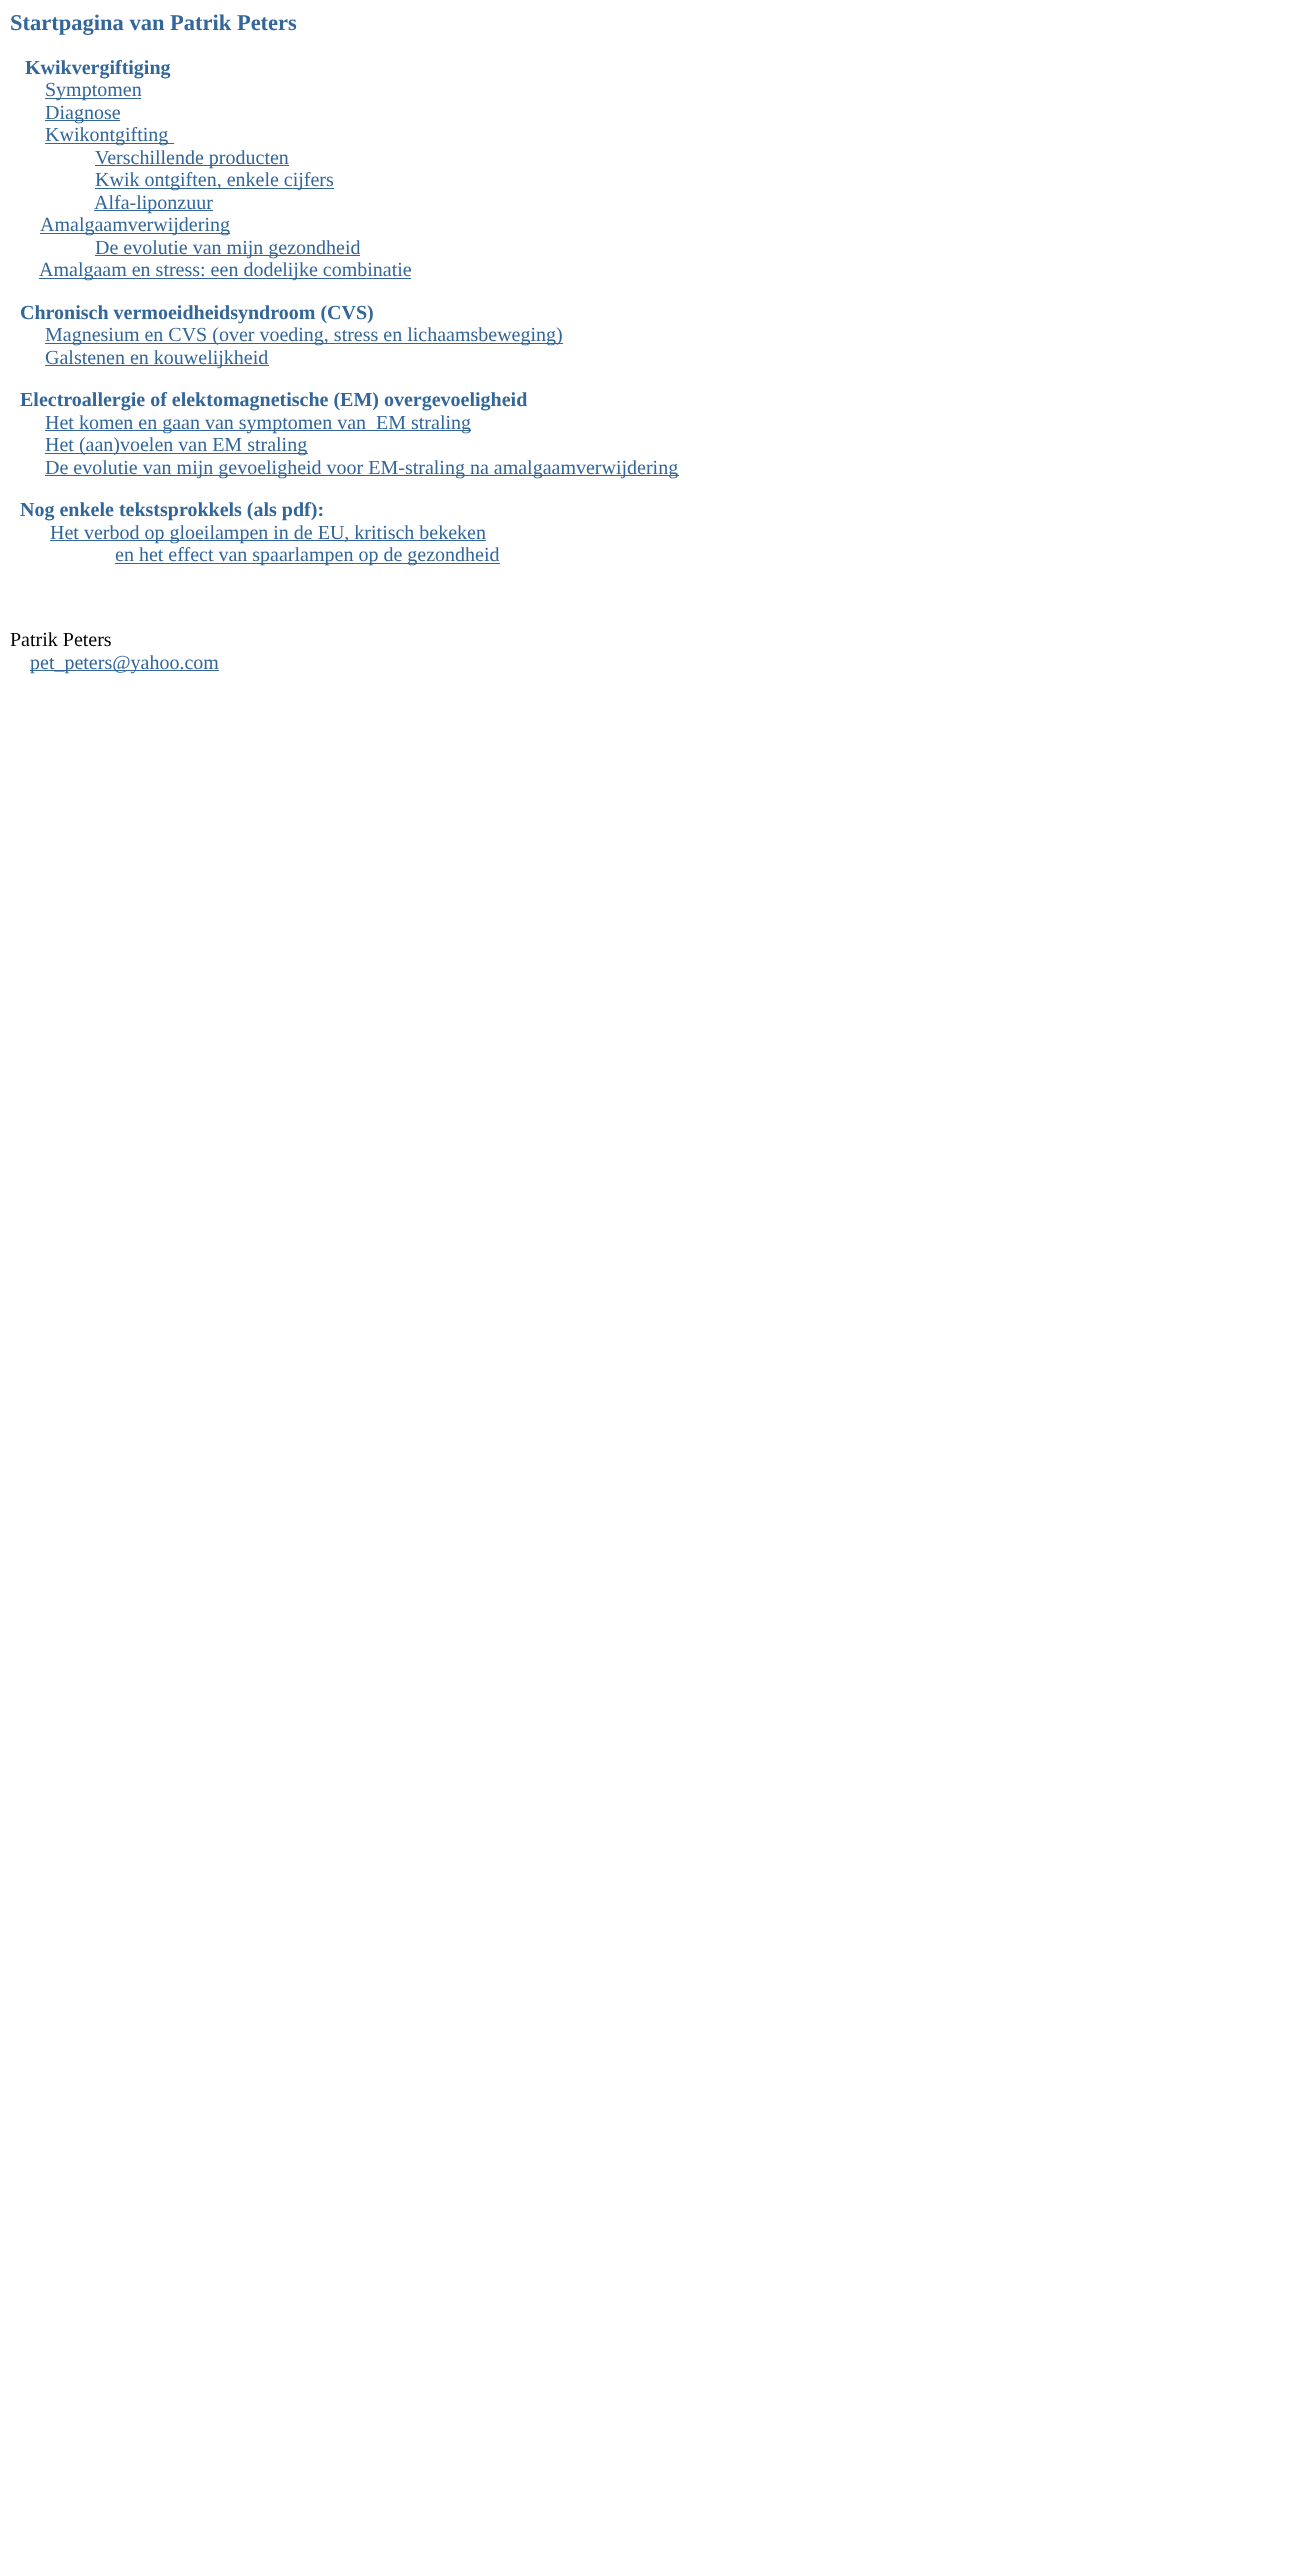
(async () => {
  const canvas = document.querySelector("canvas");
  canvas.width = 1305;
  canvas.height = 2575;
  const ctx = canvas.getContext("2d");
  ctx.miterLimit = 4;
  ctx.fontKerning = "normal";

  ctx.fillStyle = "#ffffff";
  ctx.fillRect(0, 0, 1305, 2575);
  for (const [x, y, w, h, color] of [
    [45, 98, 96, 1, "#336699"],
    [45, 120, 75, 1, "#336699"],
    [45, 143, 129, 1, "#336699"],
    [95, 165, 194, 1, "#336699"],
    [95, 188, 239, 1, "#336699"],
    [94, 210, 119, 1, "#336699"],
    [40, 233, 190, 1, "#336699"],
    [95, 255, 265, 1, "#336699"],
    [39, 278, 372, 1, "#336699"],
    [45, 343, 518, 1, "#336699"],
    [45, 365, 224, 1, "#336699"],
    [45, 430, 426, 1, "#336699"],
    [45, 453, 263, 1, "#336699"],
    [45, 475, 634, 1, "#336699"],
    [50, 540, 436, 1, "#336699"],
    [115, 563, 385, 1, "#336699"],
    [30, 670, 189, 1, "#336699"],
  ]) {
    ctx.fillStyle = color;
    ctx.fillRect(x, y, w, h);
  }
  ctx.font = "bold 22.5px Liberation Serif";
  ctx.fillText("Startpagina van Patrik Peters", 10, 30);
  ctx.font = "bold 20px Liberation Serif";
  ctx.fillText("Kwikvergiftiging", 25, 74);
  ctx.font = "20px Liberation Serif";
  for (const [text, x, y] of [
    ["Symptomen", 45, 96],
    ["Diagnose", 45, 119],
    ["Kwikontgifting", 45, 141],
    ["Verschillende producten", 95, 164],
    ["Kwik ontgiften, enkele cijfers", 95, 186],
    ["Alfa-liponzuur", 94, 209],
    ["Amalgaamverwijdering", 40, 231],
    ["De evolutie van mijn gezondheid", 95, 254],
    ["Amalgaam en stress: een dodelijke combinatie", 39, 276],
  ]) {
    ctx.fillText(text, x, y);
  }
  ctx.font = "bold 20px Liberation Serif";
  ctx.fillText("Chronisch vermoeidheidsyndroom (CVS)", 20, 319);
  ctx.font = "20px Liberation Serif";
  ctx.fillText("Magnesium en CVS (over voeding, stress en lichaamsbeweging)", 45, 341);
  ctx.fillText("Galstenen en kouwelijkheid", 45, 364);
  ctx.font = "bold 20px Liberation Serif";
  ctx.fillText("Electroallergie of elektomagnetische (EM) overgevoeligheid", 20, 406);
  ctx.font = "20px Liberation Serif";
  for (const [text, x, y] of [
    ["Het komen en gaan van symptomen van  EM straling", 45, 429],
    ["Het (aan)voelen van EM straling", 45, 451],
    ["De evolutie van mijn gevoeligheid voor EM-straling na amalgaamverwijdering", 45, 474],
  ]) {
    ctx.fillText(text, x, y);
  }
  ctx.font = "bold 20px Liberation Serif";
  ctx.fillText("Nog enkele tekstsprokkels (als pdf):", 20, 516);
  ctx.font = "20px Liberation Serif";
  ctx.fillText("Het verbod op gloeilampen in de EU, kritisch bekeken", 50, 539);
  ctx.fillText("en het effect van spaarlampen op de gezondheid", 115, 561);
  ctx.fillStyle = "#000000";
  ctx.fillText("Patrik Peters", 10, 646);
  ctx.fillStyle = "#336699";
  ctx.fillText("pet_peters@yahoo.com", 30, 669);
})();
